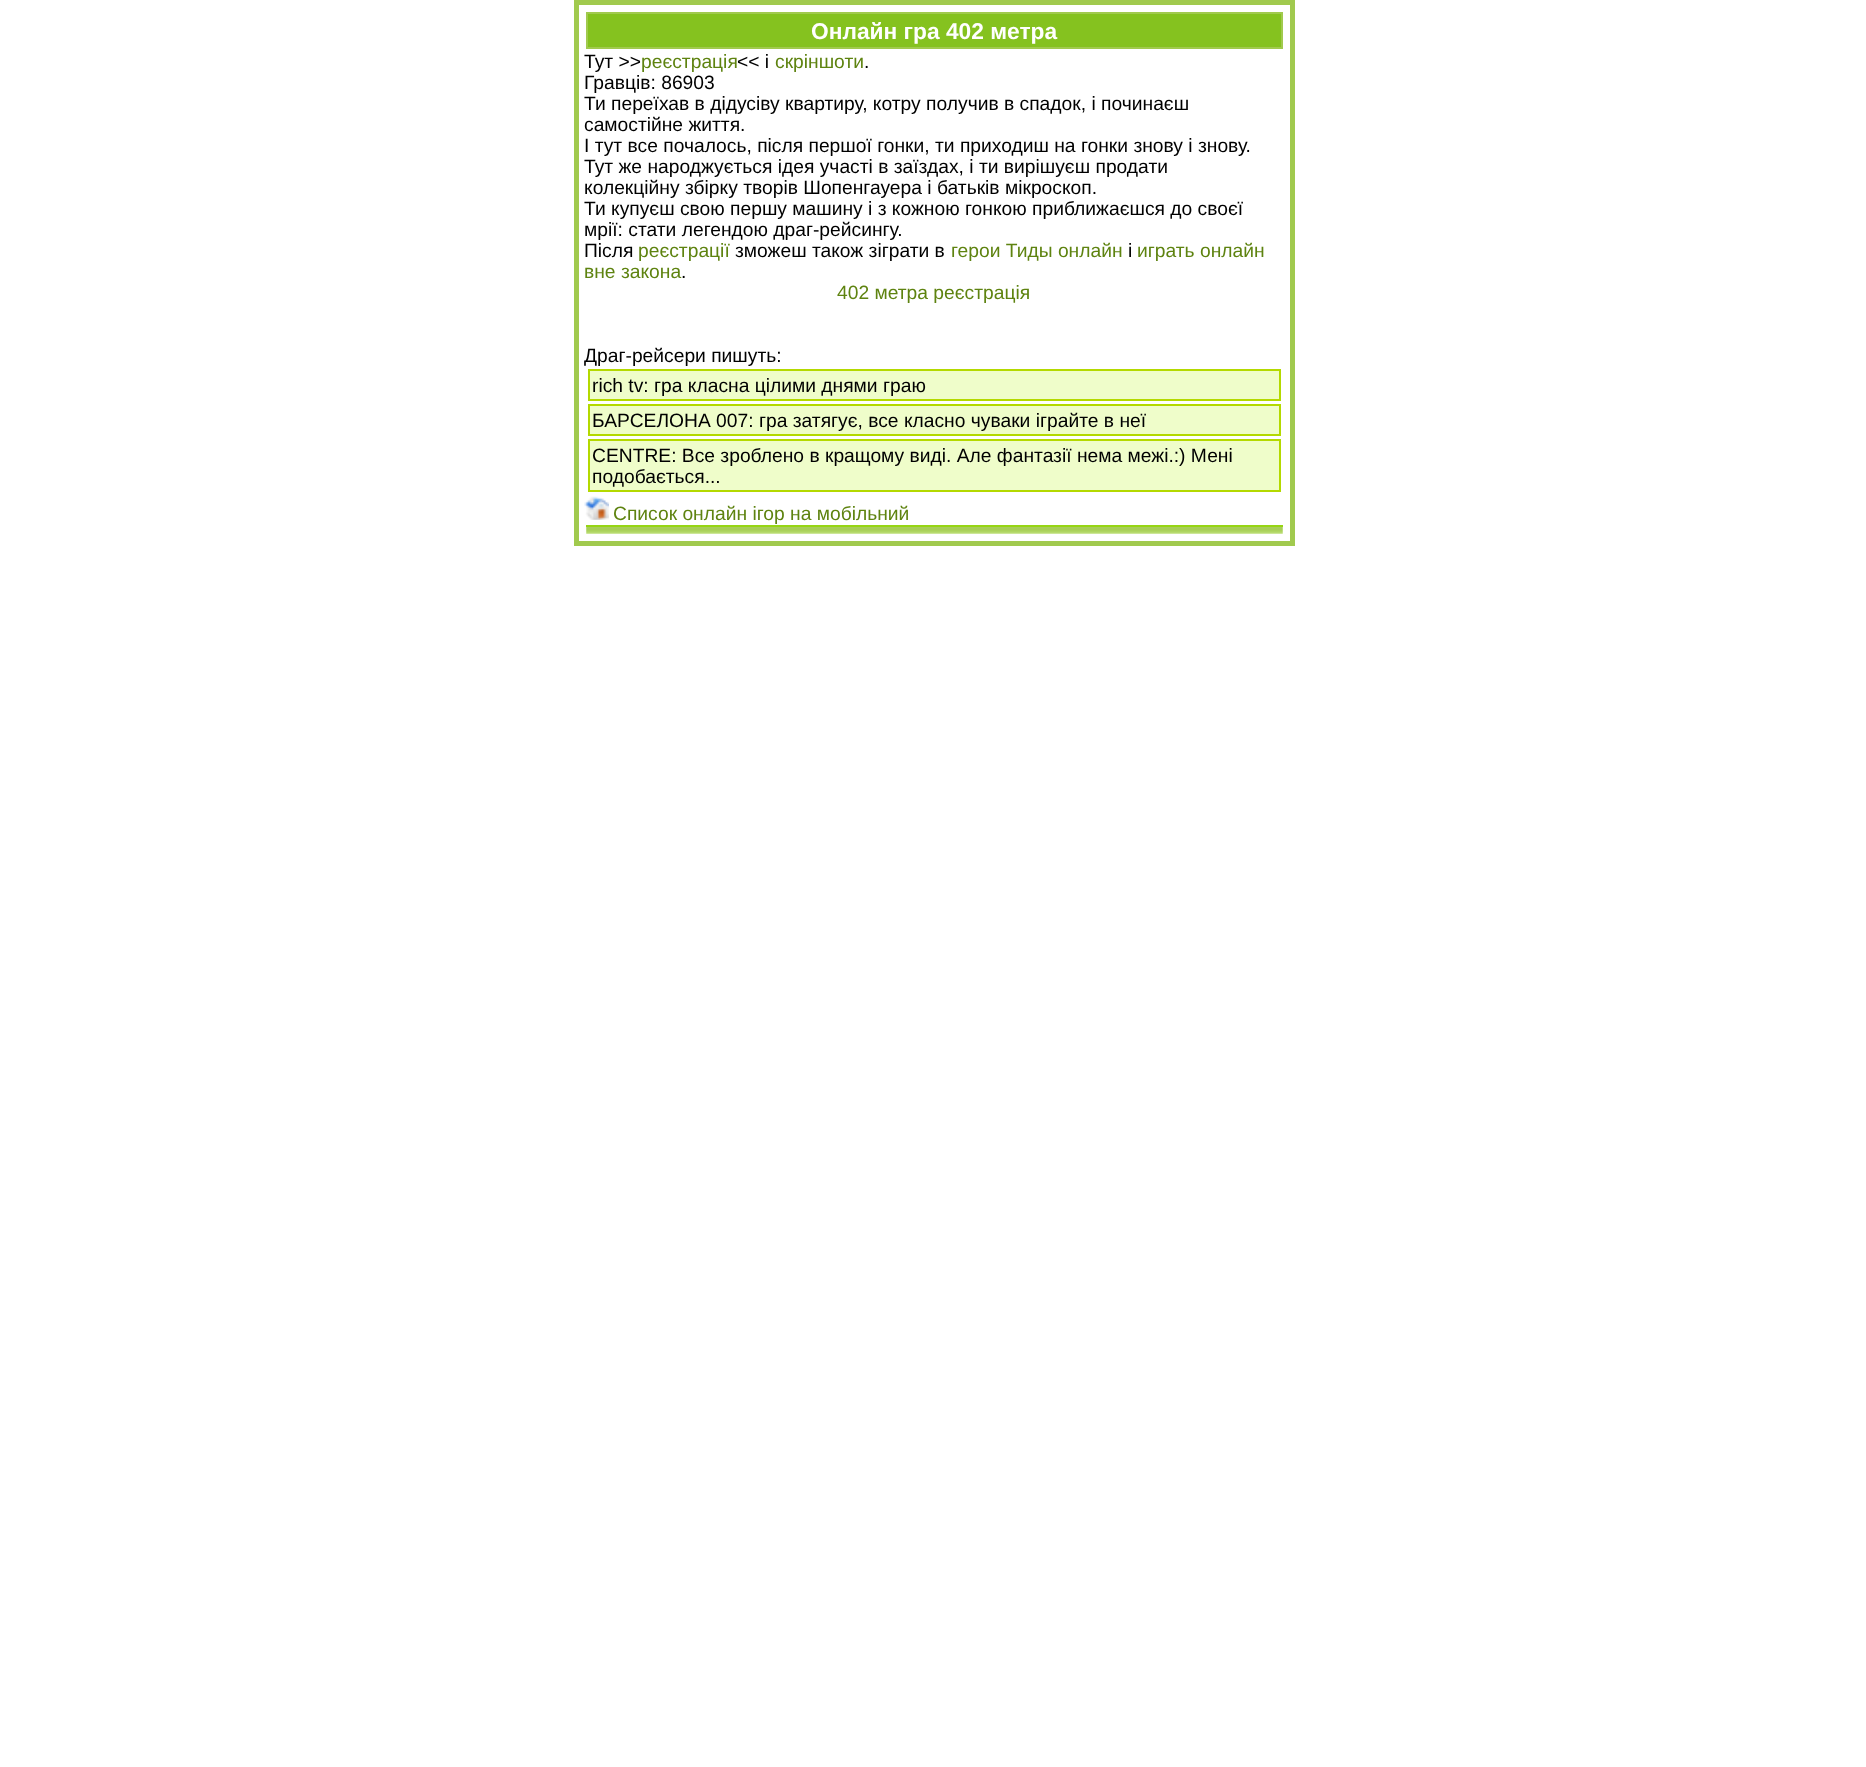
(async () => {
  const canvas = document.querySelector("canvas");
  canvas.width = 1866;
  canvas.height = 1767;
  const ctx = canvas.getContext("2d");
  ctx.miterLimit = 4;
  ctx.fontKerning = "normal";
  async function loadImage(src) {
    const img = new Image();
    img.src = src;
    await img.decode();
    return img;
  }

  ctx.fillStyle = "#ffffff";
  ctx.fillRect(0, 0, 1866, 1767);
  ctx.strokeStyle = "#a1ca4e";
  ctx.lineWidth = 5;
  ctx.strokeRect(576.5, 2.5, 716, 541);
  ctx.fillStyle = "#85c21f";
  ctx.beginPath();
  ctx.rect(587, 13, 695, 35);
  ctx.fill();
  ctx.lineWidth = 2;
  ctx.stroke();
  ctx.fillStyle = "#effdca";
  ctx.beginPath();
  ctx.rect(589, 370, 691, 30);
  ctx.fill();
  ctx.strokeStyle = "#b4d900";
  ctx.stroke();
  ctx.beginPath();
  ctx.rect(589, 405, 691, 30);
  ctx.fill();
  ctx.stroke();
  ctx.beginPath();
  ctx.rect(589, 440, 691, 51);
  ctx.fill();
  ctx.stroke();
  ctx.drawImage(await loadImage("img/1.png"), 584, 496, 25, 24);
  ctx.drawImage(await loadImage("img/2.png"), 586, 527, 697, 7);
  ctx.fillStyle = "#96d513";
  ctx.fillRect(586, 525, 697, 2);
  ctx.font = "bold 22.75px Liberation Sans";
  ctx.fillStyle = "#ffffff";
  ctx.fillText("Онлайн гра 402 метра", 811, 39);
  ctx.font = "19.25px Liberation Sans";
  ctx.fillStyle = "#000000";
  ctx.fillText("Тут >>", 584, 68);
  ctx.fillStyle = "#5e8310";
  ctx.fillText("реєстрація", 641, 68);
  ctx.fillStyle = "#000000";
  ctx.fillText("<< і", 737, 68);
  ctx.fillStyle = "#5e8310";
  ctx.fillText("скріншоти", 775, 68);
  ctx.fillStyle = "#000000";
  for (const [text, x, y] of [
    [".", 864, 68],
    ["Гравців: 86903", 584, 89],
    ["Ти переїхав в дідусіву квартиру, котру получив в спадок, і починаєш", 584, 110],
    ["самостійне життя.", 584, 131],
    ["І тут все почалось, після першої гонки, ти приходиш на гонки знову і знову.", 584, 152],
    ["Тут же народжується ідея участі в заїздах, і ти вирішуєш продати", 584, 173],
    ["колекційну збірку творів Шопенгауера і батьків мікроскоп.", 584, 194],
    ["Ти купуєш свою першу машину і з кожною гонкою приближаєшся до своєї", 584, 215],
    ["мрії: стати легендою драг-рейсингу.", 584, 236],
    ["Після", 584, 257],
  ]) {
    ctx.fillText(text, x, y);
  }
  ctx.fillStyle = "#5e8310";
  ctx.fillText("реєстрації", 638, 257);
  ctx.fillStyle = "#000000";
  ctx.fillText("зможеш також зіграти в", 735, 257);
  ctx.fillStyle = "#5e8310";
  ctx.fillText("герои Тиды онлайн", 951, 257);
  ctx.fillStyle = "#000000";
  ctx.fillText("і", 1128, 257);
  ctx.fillStyle = "#5e8310";
  ctx.fillText("играть онлайн", 1137, 257);
  ctx.fillText("вне закона", 584, 278);
  ctx.fillStyle = "#000000";
  ctx.fillText(".", 681, 278);
  ctx.fillStyle = "#5e8310";
  ctx.fillText("402 метра реєстрація", 837, 299);
  ctx.fillStyle = "#000000";
  for (const [text, x, y] of [
    ["Драг-рейсери пишуть:", 584, 362],
    ["rich tv: гра класна цілими днями граю", 592, 392],
    ["БАРСЕЛОНА 007: гра затягує, все класно чуваки іграйте в неї", 592, 427],
    ["CENTRE: Все зроблено в кращому виді. Але фантазії нема межі.:) Мені", 592, 462],
    ["подобається...", 592, 483],
  ]) {
    ctx.fillText(text, x, y);
  }
  ctx.fillStyle = "#5e8310";
  ctx.fillText("Список онлайн ігор на мобільний", 613, 520);
})();
